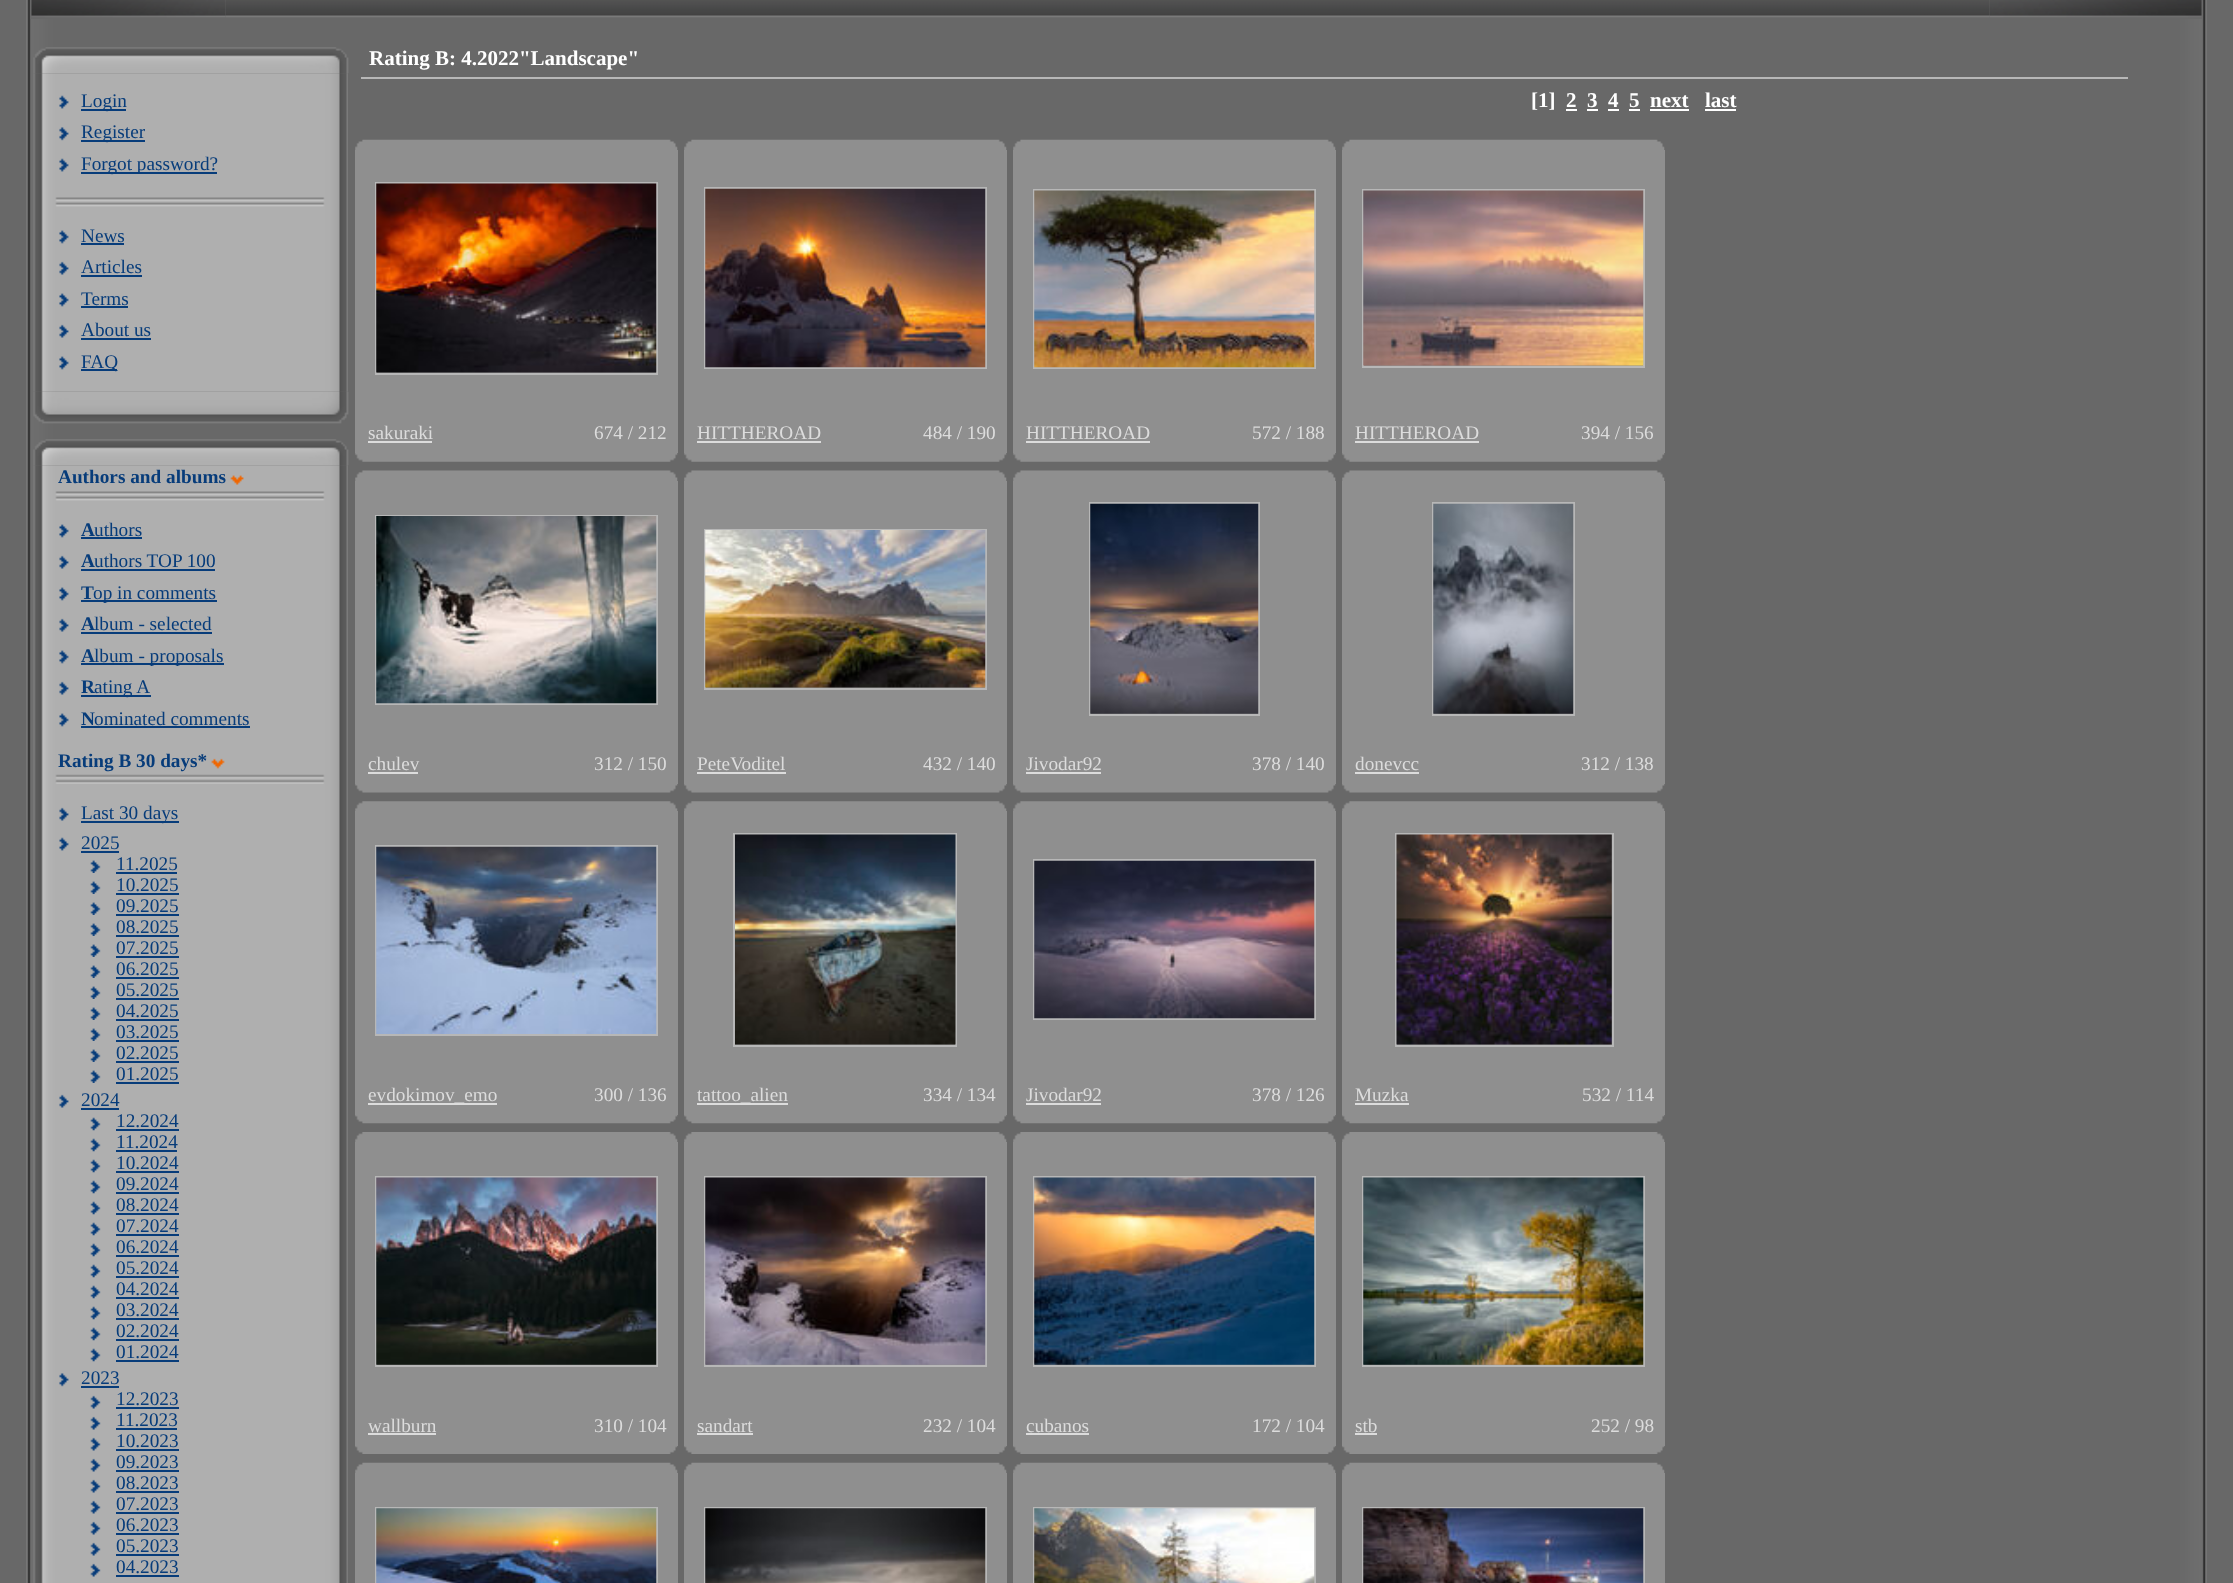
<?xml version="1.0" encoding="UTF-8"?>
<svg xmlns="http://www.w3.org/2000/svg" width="2233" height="1583">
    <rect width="100%" height="100%" fill="#686868"/>
    <image x="26" y="0" width="2181" height="1583" href="img_01.png"/>
    <rect x="30" y="0" width="2172" height="19" fill="#686868"/>
    <image x="31" y="0" width="195" height="18" href="img_02.png"/>
    <image x="226" y="0" width="1764" height="18" href="img_03.png"/>
    <image x="1990" y="0" width="212" height="18" href="img_04.png"/>
    <image x="33" y="47" width="316" height="27" href="img_05.png"/>
    <image x="33" y="73" width="315" height="319" href="img_06.png"/>
    <image x="59" y="95" width="10" height="14" href="img_07.png"/>
    <rect x="81" y="109" width="45" height="2" fill="#073C7A"/>
    <text x="81" y="107" font-family="Liberation Serif" font-size="19.25" fill="#073C7A">Login</text>
    <image x="59" y="127" width="10" height="14" href="img_08.png"/>
    <rect x="81" y="140" width="64" height="2" fill="#073C7A"/>
    <text x="81" y="138" font-family="Liberation Serif" font-size="19.25" fill="#073C7A">Register</text>
    <image x="59" y="158" width="10" height="14" href="img_07.png"/>
    <rect x="81" y="172" width="136" height="2" fill="#073C7A"/>
    <text x="81" y="170" font-family="Liberation Serif" font-size="19.25" fill="#073C7A">Forgot password?</text>
    <image x="55" y="197" width="270" height="10" href="img_09.png"/>
    <image x="59" y="230" width="10" height="14" href="img_10.png"/>
    <text x="81" y="242" font-family="Liberation Serif" font-size="19.25" fill="#073C7A">News</text>
    <rect x="81" y="243" width="43" height="2" fill="#073C7A"/>
    <image x="59" y="261" width="10" height="14" href="img_11.png"/>
    <text x="81" y="273" font-family="Liberation Serif" font-size="19.25" fill="#073C7A">Articles</text>
    <rect x="81" y="275" width="61" height="2" fill="#073C7A"/>
    <image x="59" y="293" width="10" height="14" href="img_10.png"/>
    <text x="81" y="305" font-family="Liberation Serif" font-size="19.25" fill="#073C7A">Terms</text>
    <rect x="81" y="306" width="47" height="2" fill="#073C7A"/>
    <image x="59" y="324" width="10" height="14" href="img_11.png"/>
    <text x="81" y="336" font-family="Liberation Serif" font-size="19.25" fill="#073C7A">About us</text>
    <rect x="81" y="338" width="70" height="2" fill="#073C7A"/>
    <image x="59" y="356" width="10" height="14" href="img_10.png"/>
    <rect x="81" y="369" width="36" height="2" fill="#073C7A"/>
    <text x="81" y="368" font-family="Liberation Serif" font-size="19.25" fill="#073C7A">FAQ</text>
    <image x="33" y="391" width="316" height="33" href="img_12.png"/>
    <image x="33" y="439" width="316" height="27" href="img_05.png"/>
    <image x="33" y="465" width="315" height="1118" href="img_13.png"/>
    <text x="58" y="483" font-family="Liberation Serif" font-size="19.25" font-weight="700" fill="#073C7A">Authors and albums</text>
    <image x="230" y="475" width="14" height="10" href="img_14.png"/>
    <image x="55" y="491" width="270" height="10" href="img_09.png"/>
    <image x="59" y="524" width="10" height="14" href="img_10.png"/>
    <text x="81" y="536" font-family="Liberation Serif" font-size="19.25" font-weight="700" fill="#073C7A">A</text>
    <rect x="81" y="537" width="61" height="2" fill="#073C7A"/>
    <text x="94" y="536" font-family="Liberation Serif" font-size="19.25" fill="#073C7A">uthors</text>
    <image x="59" y="555" width="10" height="14" href="img_11.png"/>
    <text x="81" y="567" font-family="Liberation Serif" font-size="19.25" font-weight="700" fill="#073C7A">A</text>
    <rect x="81" y="569" width="134" height="2" fill="#073C7A"/>
    <text x="94" y="567" font-family="Liberation Serif" font-size="19.25" fill="#073C7A">uthors TOP 100</text>
    <image x="59" y="587" width="10" height="14" href="img_10.png"/>
    <text x="81" y="599" font-family="Liberation Serif" font-size="19.25" font-weight="700" fill="#073C7A">T</text>
    <rect x="81" y="600" width="136" height="2" fill="#073C7A"/>
    <text x="93" y="599" font-family="Liberation Serif" font-size="19.25" fill="#073C7A">op in comments</text>
    <image x="59" y="618" width="10" height="14" href="img_11.png"/>
    <text x="81" y="630" font-family="Liberation Serif" font-size="19.25" font-weight="700" fill="#073C7A">A</text>
    <rect x="81" y="632" width="131" height="2" fill="#073C7A"/>
    <text x="94" y="630" font-family="Liberation Serif" font-size="19.25" fill="#073C7A">lbum - selected</text>
    <image x="59" y="650" width="10" height="14" href="img_10.png"/>
    <text x="81" y="662" font-family="Liberation Serif" font-size="19.25" font-weight="700" fill="#073C7A">A</text>
    <rect x="81" y="663" width="143" height="2" fill="#073C7A"/>
    <text x="94" y="662" font-family="Liberation Serif" font-size="19.25" fill="#073C7A">lbum - proposals</text>
    <image x="59" y="681" width="10" height="14" href="img_11.png"/>
    <text x="81" y="693" font-family="Liberation Serif" font-size="19.25" font-weight="700" fill="#073C7A">R</text>
    <rect x="81" y="695" width="70" height="2" fill="#073C7A"/>
    <text x="94" y="693" font-family="Liberation Serif" font-size="19.25" fill="#073C7A">ating A</text>
    <image x="59" y="713" width="10" height="14" href="img_10.png"/>
    <text x="81" y="725" font-family="Liberation Serif" font-size="19.25" font-weight="700" fill="#073C7A">N</text>
    <rect x="81" y="726" width="169" height="2" fill="#073C7A"/>
    <text x="94" y="725" font-family="Liberation Serif" font-size="19.25" fill="#073C7A">ominated comments</text>
    <text x="58" y="767" font-family="Liberation Serif" font-size="19.25" font-weight="700" fill="#073C7A">Rating B 30 days*</text>
    <image x="211" y="758" width="14" height="11" href="img_15.png"/>
    <image x="55" y="774" width="270" height="10" href="img_16.png"/>
    <image x="59" y="807" width="10" height="14" href="img_11.png"/>
    <rect x="81" y="821" width="98" height="2" fill="#073C7A"/>
    <text x="81" y="819" font-family="Liberation Serif" font-size="19.25" fill="#073C7A">Last 30 days</text>
    <image x="59" y="837" width="10" height="14" href="img_07.png"/>
    <text x="81" y="849" font-family="Liberation Serif" font-size="19.25" fill="#073C7A">2025</text>
    <rect x="81" y="851" width="38" height="2" fill="#073C7A"/>
    <image x="90" y="860" width="11" height="13" href="img_17.png"/>
    <text x="116" y="870" font-family="Liberation Serif" font-size="19.25" fill="#073C7A">11.2025</text>
    <rect x="116" y="872" width="61" height="2" fill="#073C7A"/>
    <image x="90" y="881" width="11" height="13" href="img_17.png"/>
    <text x="116" y="891" font-family="Liberation Serif" font-size="19.25" fill="#073C7A">10.2025</text>
    <rect x="116" y="893" width="63" height="2" fill="#073C7A"/>
    <image x="90" y="902" width="11" height="13" href="img_17.png"/>
    <text x="116" y="912" font-family="Liberation Serif" font-size="19.25" fill="#073C7A">09.2025</text>
    <rect x="116" y="914" width="63" height="2" fill="#073C7A"/>
    <image x="90" y="923" width="11" height="13" href="img_17.png"/>
    <text x="116" y="933" font-family="Liberation Serif" font-size="19.25" fill="#073C7A">08.2025</text>
    <rect x="116" y="935" width="63" height="2" fill="#073C7A"/>
    <image x="90" y="944" width="11" height="13" href="img_17.png"/>
    <text x="116" y="954" font-family="Liberation Serif" font-size="19.25" fill="#073C7A">07.2025</text>
    <rect x="116" y="956" width="63" height="2" fill="#073C7A"/>
    <image x="90" y="965" width="11" height="13" href="img_17.png"/>
    <text x="116" y="975" font-family="Liberation Serif" font-size="19.25" fill="#073C7A">06.2025</text>
    <rect x="116" y="977" width="63" height="2" fill="#073C7A"/>
    <image x="90" y="986" width="11" height="13" href="img_17.png"/>
    <text x="116" y="996" font-family="Liberation Serif" font-size="19.25" fill="#073C7A">05.2025</text>
    <rect x="116" y="998" width="63" height="2" fill="#073C7A"/>
    <image x="90" y="1007" width="11" height="13" href="img_17.png"/>
    <text x="116" y="1017" font-family="Liberation Serif" font-size="19.25" fill="#073C7A">04.2025</text>
    <rect x="116" y="1019" width="63" height="2" fill="#073C7A"/>
    <image x="90" y="1028" width="11" height="13" href="img_17.png"/>
    <text x="116" y="1038" font-family="Liberation Serif" font-size="19.25" fill="#073C7A">03.2025</text>
    <rect x="116" y="1040" width="63" height="2" fill="#073C7A"/>
    <image x="90" y="1049" width="11" height="13" href="img_17.png"/>
    <text x="116" y="1059" font-family="Liberation Serif" font-size="19.25" fill="#073C7A">02.2025</text>
    <rect x="116" y="1061" width="63" height="2" fill="#073C7A"/>
    <image x="90" y="1070" width="11" height="13" href="img_17.png"/>
    <text x="116" y="1080" font-family="Liberation Serif" font-size="19.25" fill="#073C7A">01.2025</text>
    <rect x="116" y="1082" width="63" height="2" fill="#073C7A"/>
    <image x="59" y="1094" width="10" height="14" href="img_11.png"/>
    <text x="81" y="1106" font-family="Liberation Serif" font-size="19.25" fill="#073C7A">2024</text>
    <rect x="81" y="1108" width="38" height="2" fill="#073C7A"/>
    <image x="90" y="1117" width="11" height="14" href="img_18.png"/>
    <text x="116" y="1127" font-family="Liberation Serif" font-size="19.25" fill="#073C7A">12.2024</text>
    <rect x="116" y="1129" width="63" height="2" fill="#073C7A"/>
    <image x="90" y="1138" width="11" height="14" href="img_18.png"/>
    <text x="116" y="1148" font-family="Liberation Serif" font-size="19.25" fill="#073C7A">11.2024</text>
    <rect x="116" y="1150" width="61" height="2" fill="#073C7A"/>
    <image x="90" y="1159" width="11" height="14" href="img_18.png"/>
    <text x="116" y="1169" font-family="Liberation Serif" font-size="19.25" fill="#073C7A">10.2024</text>
    <rect x="116" y="1171" width="63" height="2" fill="#073C7A"/>
    <image x="90" y="1180" width="11" height="14" href="img_18.png"/>
    <text x="116" y="1190" font-family="Liberation Serif" font-size="19.25" fill="#073C7A">09.2024</text>
    <rect x="116" y="1192" width="63" height="2" fill="#073C7A"/>
    <image x="90" y="1201" width="11" height="14" href="img_18.png"/>
    <text x="116" y="1211" font-family="Liberation Serif" font-size="19.25" fill="#073C7A">08.2024</text>
    <rect x="116" y="1213" width="63" height="2" fill="#073C7A"/>
    <image x="90" y="1222" width="11" height="14" href="img_18.png"/>
    <text x="116" y="1232" font-family="Liberation Serif" font-size="19.25" fill="#073C7A">07.2024</text>
    <rect x="116" y="1234" width="63" height="2" fill="#073C7A"/>
    <image x="90" y="1243" width="11" height="14" href="img_18.png"/>
    <text x="116" y="1253" font-family="Liberation Serif" font-size="19.25" fill="#073C7A">06.2024</text>
    <rect x="116" y="1255" width="63" height="2" fill="#073C7A"/>
    <image x="90" y="1264" width="11" height="14" href="img_18.png"/>
    <text x="116" y="1274" font-family="Liberation Serif" font-size="19.25" fill="#073C7A">05.2024</text>
    <rect x="116" y="1276" width="63" height="2" fill="#073C7A"/>
    <image x="90" y="1285" width="11" height="14" href="img_18.png"/>
    <text x="116" y="1295" font-family="Liberation Serif" font-size="19.25" fill="#073C7A">04.2024</text>
    <rect x="116" y="1297" width="63" height="2" fill="#073C7A"/>
    <image x="90" y="1306" width="11" height="14" href="img_18.png"/>
    <text x="116" y="1316" font-family="Liberation Serif" font-size="19.25" fill="#073C7A">03.2024</text>
    <rect x="116" y="1318" width="63" height="2" fill="#073C7A"/>
    <image x="90" y="1327" width="11" height="14" href="img_18.png"/>
    <text x="116" y="1337" font-family="Liberation Serif" font-size="19.25" fill="#073C7A">02.2024</text>
    <rect x="116" y="1339" width="63" height="2" fill="#073C7A"/>
    <image x="90" y="1348" width="11" height="14" href="img_18.png"/>
    <text x="116" y="1358" font-family="Liberation Serif" font-size="19.25" fill="#073C7A">01.2024</text>
    <rect x="116" y="1360" width="63" height="2" fill="#073C7A"/>
    <image x="59" y="1373" width="10" height="14" href="img_08.png"/>
    <text x="81" y="1384" font-family="Liberation Serif" font-size="19.25" fill="#073C7A">2023</text>
    <rect x="81" y="1386" width="38" height="2" fill="#073C7A"/>
    <image x="90" y="1395" width="11" height="14" href="img_19.png"/>
    <text x="116" y="1405" font-family="Liberation Serif" font-size="19.25" fill="#073C7A">12.2023</text>
    <rect x="116" y="1407" width="63" height="2" fill="#073C7A"/>
    <image x="90" y="1416" width="11" height="14" href="img_19.png"/>
    <text x="116" y="1426" font-family="Liberation Serif" font-size="19.25" fill="#073C7A">11.2023</text>
    <rect x="116" y="1428" width="61" height="2" fill="#073C7A"/>
    <image x="90" y="1437" width="11" height="14" href="img_19.png"/>
    <text x="116" y="1447" font-family="Liberation Serif" font-size="19.25" fill="#073C7A">10.2023</text>
    <rect x="116" y="1449" width="63" height="2" fill="#073C7A"/>
    <image x="90" y="1458" width="11" height="14" href="img_19.png"/>
    <text x="116" y="1468" font-family="Liberation Serif" font-size="19.25" fill="#073C7A">09.2023</text>
    <rect x="116" y="1470" width="63" height="2" fill="#073C7A"/>
    <image x="90" y="1479" width="11" height="14" href="img_19.png"/>
    <text x="116" y="1489" font-family="Liberation Serif" font-size="19.25" fill="#073C7A">08.2023</text>
    <rect x="116" y="1491" width="63" height="2" fill="#073C7A"/>
    <image x="90" y="1500" width="11" height="14" href="img_19.png"/>
    <text x="116" y="1510" font-family="Liberation Serif" font-size="19.25" fill="#073C7A">07.2023</text>
    <rect x="116" y="1512" width="63" height="2" fill="#073C7A"/>
    <image x="90" y="1521" width="11" height="14" href="img_19.png"/>
    <text x="116" y="1531" font-family="Liberation Serif" font-size="19.25" fill="#073C7A">06.2023</text>
    <rect x="116" y="1533" width="63" height="2" fill="#073C7A"/>
    <image x="90" y="1542" width="11" height="14" href="img_19.png"/>
    <text x="116" y="1552" font-family="Liberation Serif" font-size="19.25" fill="#073C7A">05.2023</text>
    <rect x="116" y="1554" width="63" height="2" fill="#073C7A"/>
    <image x="90" y="1563" width="11" height="14" href="img_19.png"/>
    <text x="116" y="1573" font-family="Liberation Serif" font-size="19.25" fill="#073C7A">04.2023</text>
    <rect x="116" y="1575" width="63" height="2" fill="#073C7A"/>
    <rect x="361" y="77" width="1767" height="2" fill="#B7B7B7"/>
    <text x="369" y="65" font-family="Liberation Serif" font-size="21" font-weight="700" fill="#FFFFFF">Rating B: 4.2022"Landscape"</text>
    <text x="1531" y="107" font-family="Liberation Serif" font-size="21" font-weight="700" fill="#FFFFFF">[1]</text>
    <text x="1566" y="107" font-family="Liberation Serif" font-size="21" font-weight="700" fill="#FFFFFF">2</text>
    <rect x="1566" y="109" width="11" height="2" fill="#FFFFFF"/>
    <text x="1587" y="107" font-family="Liberation Serif" font-size="21" font-weight="700" fill="#FFFFFF">3</text>
    <rect x="1587" y="109" width="11" height="2" fill="#FFFFFF"/>
    <text x="1608" y="107" font-family="Liberation Serif" font-size="21" font-weight="700" fill="#FFFFFF">4</text>
    <rect x="1608" y="109" width="11" height="2" fill="#FFFFFF"/>
    <text x="1629" y="107" font-family="Liberation Serif" font-size="21" font-weight="700" fill="#FFFFFF">5</text>
    <rect x="1629" y="109" width="11" height="2" fill="#FFFFFF"/>
    <text x="1650" y="107" font-family="Liberation Serif" font-size="21" font-weight="700" fill="#FFFFFF">next</text>
    <rect x="1650" y="109" width="39" height="2" fill="#FFFFFF"/>
    <text x="1705" y="107" font-family="Liberation Serif" font-size="21" font-weight="700" fill="#FFFFFF">last</text>
    <rect x="1705" y="109" width="31" height="2" fill="#FFFFFF"/>
    <image x="355" y="139" width="323" height="11" href="img_20.png"/>
    <rect x="355" y="150" width="323" height="303" fill="#8F8F8F"/>
    <rect x="376" y="183" width="281" height="191" fill="none" stroke="#B7B7B7" stroke-width="2"/>
    <image x="376" y="183" width="281" height="190" href="img_21.png"/>
    <text x="368" y="439" font-family="Liberation Serif" font-size="19.25" fill="#DCDCDC">sakuraki</text>
    <rect x="368" y="441" width="64" height="2" fill="#DCDCDC"/>
    <text x="594" y="439" font-family="Liberation Serif" font-size="19.25" fill="#DCDCDC">674 / 212</text>
    <image x="355" y="453" width="323" height="9" href="img_22.png"/>
    <image x="684" y="139" width="323" height="11" href="img_20.png"/>
    <rect x="684" y="150" width="323" height="303" fill="#8F8F8F"/>
    <rect x="705" y="188" width="281" height="180" fill="none" stroke="#B7B7B7" stroke-width="2"/>
    <image x="705" y="188" width="281" height="180" href="img_23.png"/>
    <text x="697" y="439" font-family="Liberation Serif" font-size="19.25" fill="#DCDCDC">HITTHEROAD</text>
    <rect x="697" y="441" width="124" height="2" fill="#DCDCDC"/>
    <text x="923" y="439" font-family="Liberation Serif" font-size="19.25" fill="#DCDCDC">484 / 190</text>
    <image x="684" y="453" width="323" height="9" href="img_22.png"/>
    <image x="1013" y="139" width="323" height="11" href="img_20.png"/>
    <rect x="1013" y="150" width="323" height="303" fill="#8F8F8F"/>
    <rect x="1034" y="190" width="281" height="178" fill="none" stroke="#B7B7B7" stroke-width="2"/>
    <image x="1034" y="190" width="281" height="178" href="img_24.png"/>
    <text x="1026" y="439" font-family="Liberation Serif" font-size="19.25" fill="#DCDCDC">HITTHEROAD</text>
    <rect x="1026" y="441" width="124" height="2" fill="#DCDCDC"/>
    <text x="1252" y="439" font-family="Liberation Serif" font-size="19.25" fill="#DCDCDC">572 / 188</text>
    <image x="1013" y="453" width="323" height="9" href="img_22.png"/>
    <image x="1342" y="139" width="323" height="11" href="img_20.png"/>
    <rect x="1342" y="150" width="323" height="303" fill="#8F8F8F"/>
    <rect x="1363" y="190" width="281" height="177" fill="none" stroke="#B7B7B7" stroke-width="2"/>
    <image x="1363" y="190" width="281" height="176" href="img_25.png"/>
    <text x="1355" y="439" font-family="Liberation Serif" font-size="19.25" fill="#DCDCDC">HITTHEROAD</text>
    <rect x="1355" y="441" width="124" height="2" fill="#DCDCDC"/>
    <text x="1581" y="439" font-family="Liberation Serif" font-size="19.25" fill="#DCDCDC">394 / 156</text>
    <image x="1342" y="453" width="323" height="9" href="img_22.png"/>
    <image x="355" y="470" width="323" height="11" href="img_26.png"/>
    <rect x="355" y="481" width="323" height="303" fill="#8F8F8F"/>
    <rect x="376" y="516" width="281" height="188" fill="none" stroke="#B7B7B7" stroke-width="2"/>
    <image x="376" y="516" width="281" height="188" href="img_27.png"/>
    <text x="368" y="770" font-family="Liberation Serif" font-size="19.25" fill="#DCDCDC">chulev</text>
    <rect x="368" y="772" width="50" height="2" fill="#DCDCDC"/>
    <text x="594" y="770" font-family="Liberation Serif" font-size="19.25" fill="#DCDCDC">312 / 150</text>
    <image x="355" y="784" width="323" height="9" href="img_28.png"/>
    <image x="684" y="470" width="323" height="11" href="img_26.png"/>
    <rect x="684" y="481" width="323" height="303" fill="#8F8F8F"/>
    <rect x="705" y="530" width="281" height="159" fill="none" stroke="#B7B7B7" stroke-width="2"/>
    <image x="705" y="530" width="281" height="158" href="img_29.png"/>
    <text x="697" y="770" font-family="Liberation Serif" font-size="19.25" fill="#DCDCDC">PeteVoditel</text>
    <rect x="697" y="772" width="89" height="2" fill="#DCDCDC"/>
    <text x="923" y="770" font-family="Liberation Serif" font-size="19.25" fill="#DCDCDC">432 / 140</text>
    <image x="684" y="784" width="323" height="9" href="img_28.png"/>
    <image x="1013" y="470" width="323" height="11" href="img_26.png"/>
    <rect x="1013" y="481" width="323" height="303" fill="#8F8F8F"/>
    <rect x="1090" y="503" width="169" height="212" fill="none" stroke="#B7B7B7" stroke-width="2"/>
    <image x="1090" y="503" width="169" height="211" href="img_30.png"/>
    <text x="1026" y="770" font-family="Liberation Serif" font-size="19.25" fill="#DCDCDC">Jivodar92</text>
    <rect x="1026" y="772" width="75" height="2" fill="#DCDCDC"/>
    <text x="1252" y="770" font-family="Liberation Serif" font-size="19.25" fill="#DCDCDC">378 / 140</text>
    <image x="1013" y="784" width="323" height="9" href="img_28.png"/>
    <image x="1342" y="470" width="323" height="11" href="img_26.png"/>
    <rect x="1342" y="481" width="323" height="303" fill="#8F8F8F"/>
    <rect x="1433" y="503" width="141" height="212" fill="none" stroke="#B7B7B7" stroke-width="2"/>
    <image x="1433" y="503" width="141" height="211" href="img_31.png"/>
    <text x="1355" y="770" font-family="Liberation Serif" font-size="19.25" fill="#DCDCDC">donevcc</text>
    <rect x="1355" y="772" width="64" height="2" fill="#DCDCDC"/>
    <text x="1581" y="770" font-family="Liberation Serif" font-size="19.25" fill="#DCDCDC">312 / 138</text>
    <image x="1342" y="784" width="323" height="9" href="img_28.png"/>
    <image x="355" y="801" width="323" height="10" href="img_32.png"/>
    <rect x="355" y="811" width="323" height="304" fill="#8F8F8F"/>
    <rect x="376" y="846" width="281" height="189" fill="none" stroke="#B7B7B7" stroke-width="2"/>
    <image x="376" y="846" width="281" height="188" href="img_33.png"/>
    <rect x="368" y="1103" width="129" height="2" fill="#DCDCDC"/>
    <text x="368" y="1101" font-family="Liberation Serif" font-size="19.25" fill="#DCDCDC">evdokimov_emo</text>
    <text x="594" y="1101" font-family="Liberation Serif" font-size="19.25" fill="#DCDCDC">300 / 136</text>
    <image x="355" y="1115" width="323" height="9" href="img_34.png"/>
    <image x="684" y="801" width="323" height="10" href="img_32.png"/>
    <rect x="684" y="811" width="323" height="304" fill="#8F8F8F"/>
    <rect x="734" y="834" width="222" height="212" fill="none" stroke="#B7B7B7" stroke-width="2"/>
    <image x="735" y="834" width="221" height="211" href="img_35.png"/>
    <rect x="697" y="1103" width="91" height="2" fill="#DCDCDC"/>
    <text x="697" y="1101" font-family="Liberation Serif" font-size="19.25" fill="#DCDCDC">tattoo_alien</text>
    <text x="923" y="1101" font-family="Liberation Serif" font-size="19.25" fill="#DCDCDC">334 / 134</text>
    <image x="684" y="1115" width="323" height="9" href="img_34.png"/>
    <image x="1013" y="801" width="323" height="10" href="img_32.png"/>
    <rect x="1013" y="811" width="323" height="304" fill="#8F8F8F"/>
    <rect x="1034" y="860" width="281" height="159" fill="none" stroke="#B7B7B7" stroke-width="2"/>
    <image x="1034" y="860" width="281" height="159" href="img_36.png"/>
    <text x="1026" y="1101" font-family="Liberation Serif" font-size="19.25" fill="#DCDCDC">Jivodar92</text>
    <rect x="1026" y="1103" width="75" height="2" fill="#DCDCDC"/>
    <text x="1252" y="1101" font-family="Liberation Serif" font-size="19.25" fill="#DCDCDC">378 / 126</text>
    <image x="1013" y="1115" width="323" height="9" href="img_34.png"/>
    <image x="1342" y="801" width="323" height="10" href="img_32.png"/>
    <rect x="1342" y="811" width="323" height="304" fill="#8F8F8F"/>
    <rect x="1396" y="834" width="217" height="212" fill="none" stroke="#B7B7B7" stroke-width="2"/>
    <image x="1396" y="834" width="216" height="211" href="img_37.png"/>
    <text x="1355" y="1101" font-family="Liberation Serif" font-size="19.25" fill="#DCDCDC">Muzka</text>
    <rect x="1355" y="1103" width="54" height="2" fill="#DCDCDC"/>
    <text x="1582" y="1101" font-family="Liberation Serif" font-size="19.25" fill="#DCDCDC">532 / 114</text>
    <image x="1342" y="1115" width="323" height="9" href="img_34.png"/>
    <image x="355" y="1132" width="323" height="10" href="img_38.png"/>
    <rect x="355" y="1142" width="323" height="304" fill="#8F8F8F"/>
    <rect x="376" y="1177" width="281" height="189" fill="none" stroke="#B7B7B7" stroke-width="2"/>
    <image x="376" y="1177" width="281" height="188" href="img_39.png"/>
    <text x="368" y="1432" font-family="Liberation Serif" font-size="19.25" fill="#DCDCDC">wallburn</text>
    <rect x="368" y="1433" width="68" height="2" fill="#DCDCDC"/>
    <text x="594" y="1432" font-family="Liberation Serif" font-size="19.25" fill="#DCDCDC">310 / 104</text>
    <image x="355" y="1446" width="323" height="8" href="img_40.png"/>
    <image x="684" y="1132" width="323" height="10" href="img_38.png"/>
    <rect x="684" y="1142" width="323" height="304" fill="#8F8F8F"/>
    <rect x="705" y="1177" width="281" height="189" fill="none" stroke="#B7B7B7" stroke-width="2"/>
    <image x="705" y="1177" width="281" height="188" href="img_41.png"/>
    <text x="697" y="1432" font-family="Liberation Serif" font-size="19.25" fill="#DCDCDC">sandart</text>
    <rect x="697" y="1433" width="56" height="2" fill="#DCDCDC"/>
    <text x="923" y="1432" font-family="Liberation Serif" font-size="19.25" fill="#DCDCDC">232 / 104</text>
    <image x="684" y="1446" width="323" height="8" href="img_40.png"/>
    <image x="1013" y="1132" width="323" height="10" href="img_38.png"/>
    <rect x="1013" y="1142" width="323" height="304" fill="#8F8F8F"/>
    <rect x="1034" y="1177" width="281" height="189" fill="none" stroke="#B7B7B7" stroke-width="2"/>
    <image x="1034" y="1177" width="281" height="188" href="img_42.png"/>
    <text x="1026" y="1432" font-family="Liberation Serif" font-size="19.25" fill="#DCDCDC">cubanos</text>
    <rect x="1026" y="1433" width="63" height="2" fill="#DCDCDC"/>
    <text x="1252" y="1432" font-family="Liberation Serif" font-size="19.25" fill="#DCDCDC">172 / 104</text>
    <image x="1013" y="1446" width="323" height="8" href="img_40.png"/>
    <image x="1342" y="1132" width="323" height="10" href="img_38.png"/>
    <rect x="1342" y="1142" width="323" height="304" fill="#8F8F8F"/>
    <rect x="1363" y="1177" width="281" height="189" fill="none" stroke="#B7B7B7" stroke-width="2"/>
    <image x="1363" y="1177" width="281" height="188" href="img_43.png"/>
    <text x="1355" y="1432" font-family="Liberation Serif" font-size="19.25" fill="#DCDCDC">stb</text>
    <rect x="1355" y="1433" width="22" height="2" fill="#DCDCDC"/>
    <text x="1591" y="1432" font-family="Liberation Serif" font-size="19.25" fill="#DCDCDC">252 / 98</text>
    <image x="1342" y="1446" width="323" height="8" href="img_40.png"/>
    <image x="355" y="1462" width="323" height="11" href="img_20.png"/>
    <rect x="355" y="1473" width="323" height="110" fill="#8F8F8F"/>
    <rect x="376" y="1508" width="281" height="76" fill="none" stroke="#B7B7B7" stroke-width="2"/>
    <image x="376" y="1508" width="281" height="75" href="img_44.png"/>
    <image x="684" y="1462" width="323" height="11" href="img_20.png"/>
    <rect x="684" y="1473" width="323" height="110" fill="#8F8F8F"/>
    <rect x="705" y="1508" width="281" height="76" fill="none" stroke="#B7B7B7" stroke-width="2"/>
    <image x="705" y="1508" width="281" height="75" href="img_45.png"/>
    <image x="1013" y="1462" width="323" height="11" href="img_20.png"/>
    <rect x="1013" y="1473" width="323" height="110" fill="#8F8F8F"/>
    <rect x="1034" y="1508" width="281" height="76" fill="none" stroke="#B7B7B7" stroke-width="2"/>
    <image x="1034" y="1508" width="281" height="75" href="img_46.png"/>
    <image x="1342" y="1462" width="323" height="11" href="img_20.png"/>
    <rect x="1342" y="1473" width="323" height="110" fill="#8F8F8F"/>
    <rect x="1363" y="1508" width="281" height="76" fill="none" stroke="#B7B7B7" stroke-width="2"/>
    <image x="1363" y="1508" width="281" height="75" href="img_47.png"/>
</svg>
